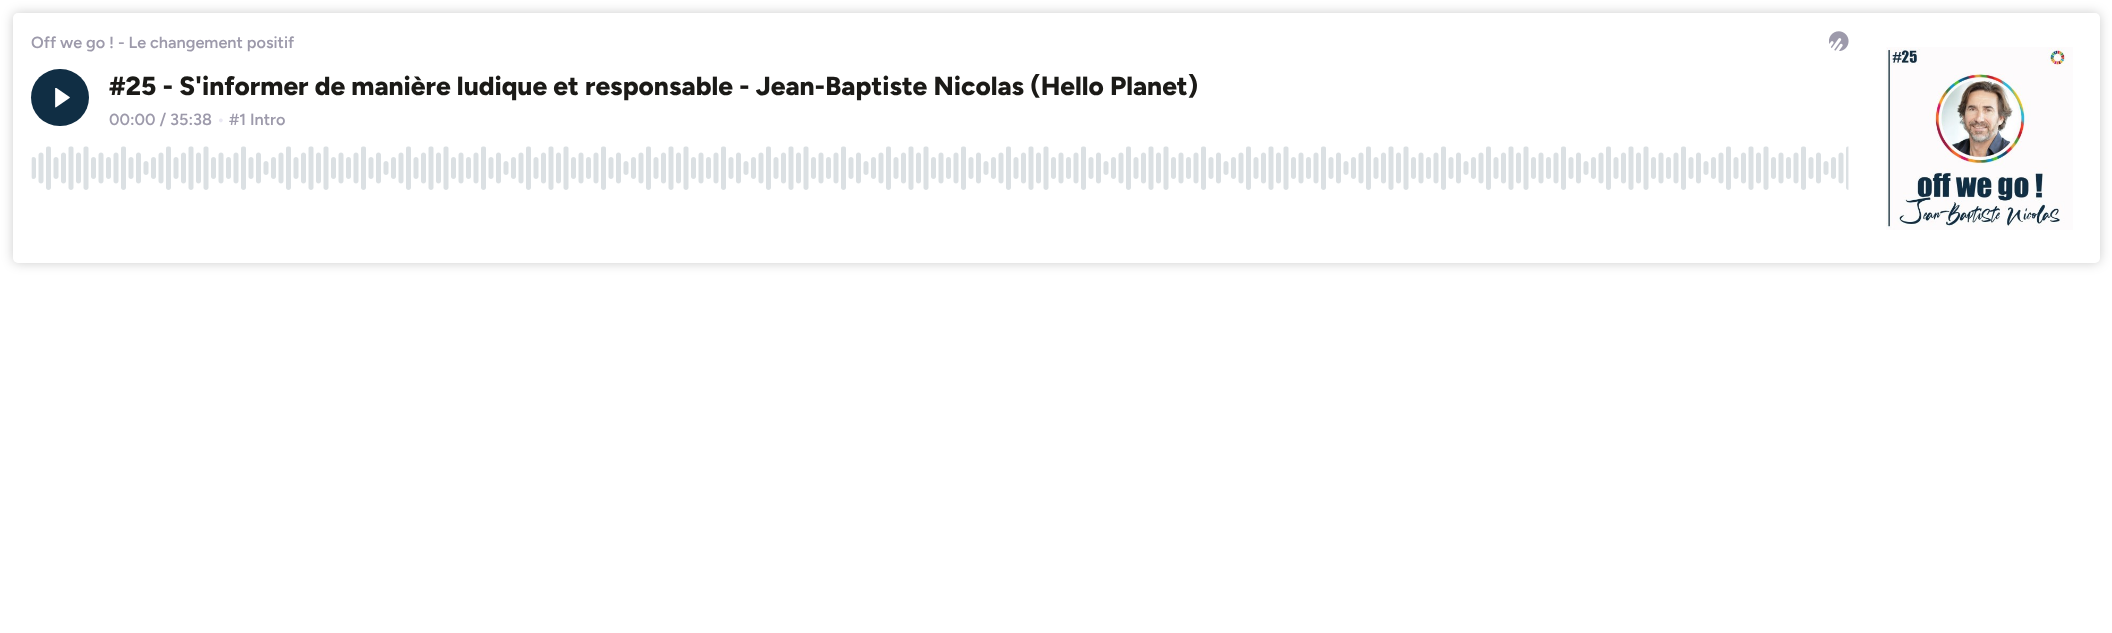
<?xml version="1.0" encoding="UTF-8"?>
<svg xmlns="http://www.w3.org/2000/svg" width="2112" height="633">
    <defs>
        <filter id="blur1" x="-50%" y="-200%" width="200%" height="500%"><feGaussianBlur stdDeviation="6"/></filter>
    </defs>
    <rect width="100%" height="100%" fill="#FFFFFF"/>
    <rect x="13" y="13" width="2087" height="250" rx="5" fill="#000000" fill-opacity="0.2" filter="url(#blur1)"/>
    <rect x="13" y="13" width="2087" height="250" rx="5" fill="#FFFFFF"/>
    <text x="31" y="48" font-family="Figtree" font-size="16.25" font-weight="600" fill="#9D9AAB">Off we go ! - Le changement positif</text>
    <image x="1829" y="31" width="20" height="20" href="img_01.png"/>
    <rect x="31" y="69" width="58" height="57" rx="28.5" fill="#102E44"/>
    <image x="55" y="88" width="15" height="20" href="img_02.png"/>
    <text x="109" y="95" font-family="Figtree" font-size="26.25" font-weight="800" fill="#1B1A17">#25 - S'informer de manière ludique et responsable - Jean-Baptiste Nicolas (Hello Planet)</text>
    <text x="109" y="125" font-family="Figtree" font-size="16.25" font-weight="600" fill="#9D9AAB">00:00 / 35:38</text>
    <text x="217" y="125" font-family="Figtree" font-size="16.25" font-weight="600" fill="#EAE8F3">•</text>
    <text x="229" y="125" font-family="Figtree" font-size="16.25" font-weight="600" fill="#9D9AAB">#1 Intro</text>
    <image x="31" y="146" width="1818" height="44" href="img_03.png"/>
    <image x="1886" y="47" width="187" height="183" href="img_04.png"/>
</svg>
